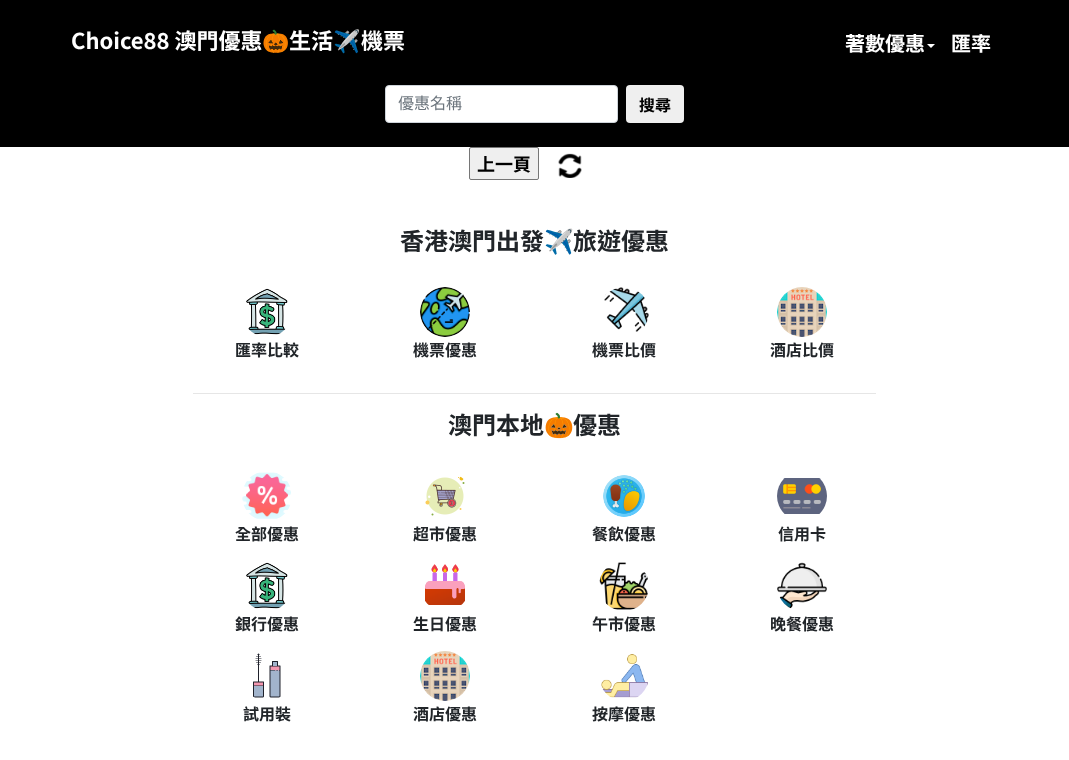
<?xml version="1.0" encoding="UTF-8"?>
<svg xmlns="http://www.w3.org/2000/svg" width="1069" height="760">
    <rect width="100%" height="100%" fill="#FFFFFF"/>
    <rect x="0" y="0" width="1069" height="147" fill="#000000"/>
    <text x="71" y="49" font-family="Noto Sans TC" font-size="22" font-weight="100" fill="#FFFFFF">Choice88 澳門優惠</text>
    <text x="262" y="49" font-family="Noto Color Emoji" font-size="22" font-weight="700" fill="#FFFFFF">🎃</text>
    <text x="289" y="49" font-family="Noto Sans TC" font-size="22" font-weight="100" fill="#FFFFFF">生活</text>
    <text x="333" y="49" font-family="Noto Color Emoji" font-size="22" font-weight="700" fill="#FFFFFF">✈️</text>
    <text x="361" y="49" font-family="Noto Sans TC" font-size="22" font-weight="100" fill="#FFFFFF">機票</text>
    <text x="845" y="51" font-family="Noto Sans TC" font-size="20" font-weight="100" fill="#FFFFFF">著數優惠</text>
    <path d="M 927 44 H 935 L 931 48 Z" fill="#FFFFFF"/>
    <text x="951" y="51" font-family="Noto Sans TC" font-size="20" font-weight="100" fill="#FFFFFF">匯率</text>
    <rect x="385.5" y="85.5" width="232" height="37" rx="3.5" fill="#FFFFFF" stroke="#CED4DA"/>
    <text x="398" y="109" font-family="Noto Sans CJK TC" font-size="16" fill="#6C757D">優惠名稱</text>
    <rect x="626" y="85" width="58" height="38" rx="4" fill="#EFEFEF"/>
    <text x="639" y="111" font-family="Noto Sans TC" font-size="16" font-weight="100" fill="#000000">搜尋</text>
    <rect x="469.5" y="147.5" width="69" height="32" rx="1.5" fill="#EFEFEF" stroke="#767676"/>
    <text x="477" y="171" font-family="Noto Sans TC" font-size="18" font-weight="100" fill="#000000">上一頁</text>
    <image x="558" y="153" width="24" height="25" href="img_01.png"/>
    <text x="400" y="250" font-family="Noto Sans TC" font-size="24" font-weight="100" fill="#212529">香港澳門出發</text>
    <text x="544" y="250" font-family="Noto Color Emoji" font-size="24" fill="#212529">✈️</text>
    <text x="573" y="250" font-family="Noto Sans TC" font-size="24" font-weight="100" fill="#212529">旅遊優惠</text>
    <image x="246" y="288" width="42" height="47" href="img_02.png"/>
    <text x="235" y="356" font-family="Noto Sans TC" font-size="16" font-weight="100" fill="#212529">匯率比較</text>
    <image x="420" y="287" width="50" height="50" href="img_03.png"/>
    <text x="413" y="356" font-family="Noto Sans TC" font-size="16" font-weight="100" fill="#212529">機票優惠</text>
    <image x="604" y="287" width="45" height="45" href="img_04.png"/>
    <text x="592" y="356" font-family="Noto Sans TC" font-size="16" font-weight="100" fill="#212529">機票比價</text>
    <image x="777" y="287" width="50" height="50" href="img_05.png"/>
    <text x="770" y="356" font-family="Noto Sans TC" font-size="16" font-weight="100" fill="#212529">酒店比價</text>
    <rect x="193" y="393" width="683" height="1" fill="#E6E6E6"/>
    <text x="448" y="434" font-family="Noto Sans TC" font-size="24" font-weight="100" fill="#212529">澳門本地</text>
    <text x="544" y="434" font-family="Noto Color Emoji" font-size="24" fill="#212529">🎃</text>
    <text x="573" y="434" font-family="Noto Sans TC" font-size="24" font-weight="100" fill="#212529">優惠</text>
    <image x="242" y="472" width="49" height="47" href="img_06.png"/>
    <text x="235" y="540" font-family="Noto Sans TC" font-size="16" font-weight="100" fill="#212529">全部優惠</text>
    <image x="425" y="476" width="40" height="40" href="img_07.png"/>
    <text x="413" y="540" font-family="Noto Sans TC" font-size="16" font-weight="100" fill="#212529">超市優惠</text>
    <image x="603" y="475" width="42" height="42" href="img_08.png"/>
    <text x="592" y="540" font-family="Noto Sans TC" font-size="16" font-weight="100" fill="#212529">餐飲優惠</text>
    <image x="777" y="478" width="50" height="36" href="img_09.png"/>
    <text x="778" y="540" font-family="Noto Sans TC" font-size="16" font-weight="100" fill="#212529">信用卡</text>
    <image x="246" y="562" width="42" height="47" href="img_02.png"/>
    <text x="235" y="630" font-family="Noto Sans TC" font-size="16" font-weight="100" fill="#212529">銀行優惠</text>
    <image x="425" y="564" width="40" height="41" href="img_10.png"/>
    <text x="413" y="630" font-family="Noto Sans TC" font-size="16" font-weight="100" fill="#212529">生日優惠</text>
    <image x="599" y="562" width="49" height="48" href="img_11.png"/>
    <text x="592" y="630" font-family="Noto Sans TC" font-size="16" font-weight="100" fill="#212529">午市優惠</text>
    <image x="777" y="562" width="50" height="47" href="img_12.png"/>
    <text x="770" y="630" font-family="Noto Sans TC" font-size="16" font-weight="100" fill="#212529">晚餐優惠</text>
    <image x="253" y="653" width="28" height="45" href="img_13.png"/>
    <text x="243" y="720" font-family="Noto Sans TC" font-size="16" font-weight="100" fill="#212529">試用裝</text>
    <image x="420" y="651" width="50" height="50" href="img_14.png"/>
    <text x="413" y="720" font-family="Noto Sans TC" font-size="16" font-weight="100" fill="#212529">酒店優惠</text>
    <image x="601" y="654" width="47" height="44" href="img_15.png"/>
    <text x="592" y="720" font-family="Noto Sans TC" font-size="16" font-weight="100" fill="#212529">按摩優惠</text>
</svg>
